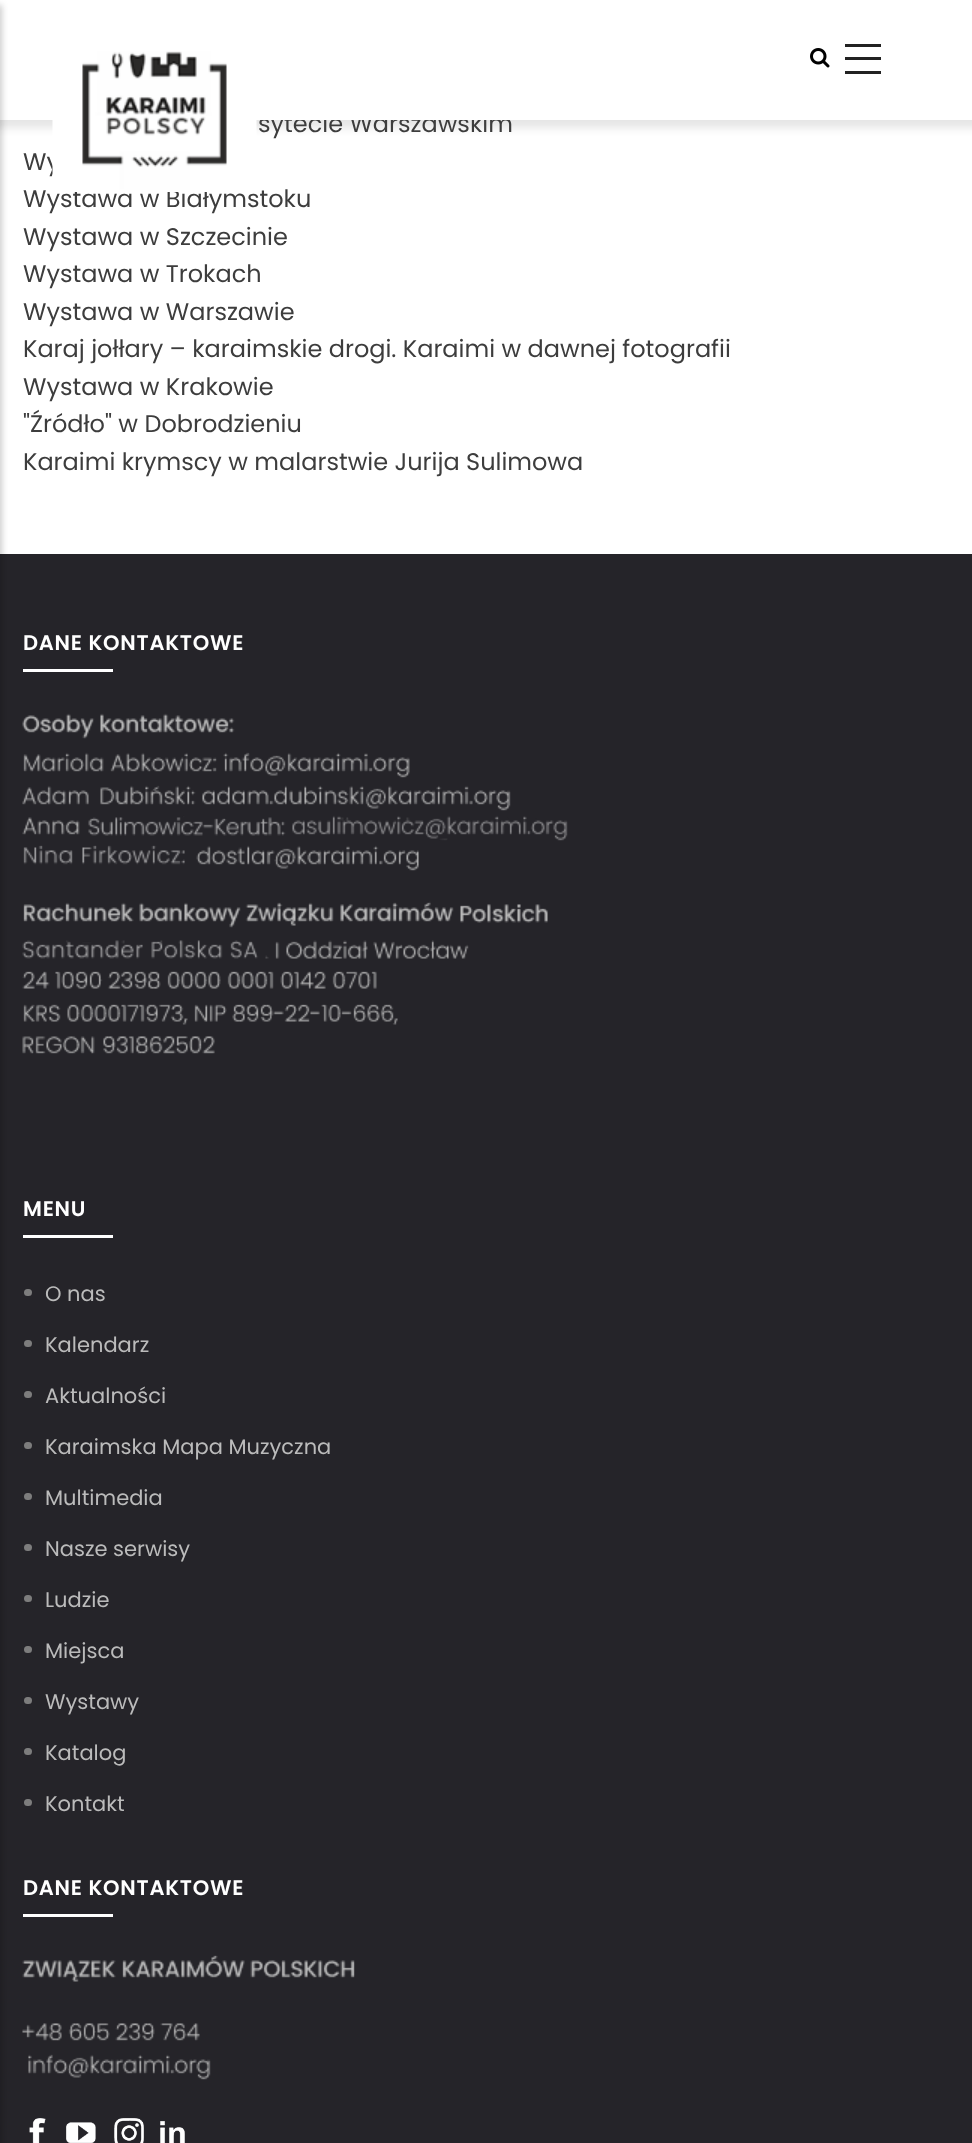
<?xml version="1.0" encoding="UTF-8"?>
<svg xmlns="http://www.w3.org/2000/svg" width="972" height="2143">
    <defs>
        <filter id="blur1" x="-50%" y="-200%" width="200%" height="500%"><feGaussianBlur stdDeviation="4"/></filter>
        <filter id="blur2" x="-50%" y="-200%" width="200%" height="500%"><feGaussianBlur stdDeviation="3"/></filter>
    </defs>
    <rect width="100%" height="100%" fill="#FFFFFF"/>
    <rect x="-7" y="-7" width="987" height="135" fill="#000000" fill-opacity="0.1" filter="url(#blur1)"/>
    <text x="258" y="132" font-family="Poppins" font-size="24" fill="#3D3D3D">sytecie Warszawskim</text>
    <rect x="0" y="0" width="972" height="120" fill="#FFFFFF"/>
    <rect x="0" y="554" width="972" height="1589" fill="#252429"/>
    <rect x="-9" y="5" width="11" height="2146" fill="#000000" fill-opacity="0.2" filter="url(#blur2)"/>
    <image x="810" y="48" width="20" height="20" href="img_01.png"/>
    <rect x="845" y="44" width="36" height="3" fill="#222222"/>
    <rect x="845" y="57" width="36" height="3" fill="#222222"/>
    <rect x="845" y="71" width="36" height="3" fill="#222222"/>
    <text font-family="Poppins" font-size="24" fill="#3D3D3D">
        <tspan x="23" y="170">Wy</tspan>
        <tspan x="23" y="207">Wystawa w Białymstoku</tspan>
    </text>
    <image x="52" y="51" width="205" height="141" href="img_02.png"/>
    <text font-family="Poppins" font-size="24" fill="#3D3D3D">
        <tspan x="23" y="245">Wystawa w Szczecinie</tspan>
        <tspan x="23" y="282">Wystawa w Trokach</tspan>
        <tspan x="23" y="320">Wystawa w Warszawie</tspan>
        <tspan x="23" y="357">Karaj jołłary – karaimskie drogi. Karaimi w dawnej fotografii</tspan>
        <tspan x="23" y="395">Wystawa w Krakowie</tspan>
        <tspan x="23" y="432">"Źródło" w Dobrodzieniu</tspan>
        <tspan x="23" y="470">Karaimi krymscy w malarstwie Jurija Sulimowa</tspan>
    </text>
    <text x="23" y="650" font-family="Poppins" font-size="21" font-weight="600" letter-spacing="0.75" fill="#FFFFFF">DANE KONTAKTOWE</text>
    <rect x="23" y="669" width="90" height="3" fill="#FFFFFF"/>
    <image x="22" y="713" width="546" height="341" href="img_03.png"/>
    <text x="23" y="1216" font-family="Poppins" font-size="21" font-weight="600" letter-spacing="0.75" fill="#FFFFFF">MENU</text>
    <rect x="23" y="1235" width="90" height="3" fill="#FFFFFF"/>
    <rect x="24" y="1289" width="8" height="7" rx="3.5" fill="#7D7D7D"/>
    <text x="45" y="1301" font-family="Poppins" font-size="21" fill="#BBBBBB">O nas</text>
    <rect x="24" y="1340" width="8" height="7" rx="3.5" fill="#7D7D7D"/>
    <text x="45" y="1352" font-family="Poppins" font-size="21" fill="#BBBBBB">Kalendarz</text>
    <rect x="24" y="1391" width="8" height="7" rx="3.5" fill="#7D7D7D"/>
    <text x="45" y="1403" font-family="Poppins" font-size="21" fill="#BBBBBB">Aktualności</text>
    <rect x="24" y="1442" width="8" height="7" rx="3.5" fill="#7D7D7D"/>
    <text x="45" y="1454" font-family="Poppins" font-size="21" fill="#BBBBBB">Karaimska Mapa Muzyczna</text>
    <rect x="24" y="1493" width="8" height="7" rx="3.5" fill="#7D7D7D"/>
    <text x="45" y="1505" font-family="Poppins" font-size="21" fill="#BBBBBB">Multimedia</text>
    <rect x="24" y="1544" width="8" height="7" rx="3.5" fill="#7D7D7D"/>
    <text x="45" y="1556" font-family="Poppins" font-size="21" fill="#BBBBBB">Nasze serwisy</text>
    <rect x="24" y="1595" width="8" height="7" rx="3.5" fill="#7D7D7D"/>
    <text x="45" y="1607" font-family="Poppins" font-size="21" fill="#BBBBBB">Ludzie</text>
    <rect x="24" y="1646" width="8" height="7" rx="3.5" fill="#7D7D7D"/>
    <text x="45" y="1658" font-family="Poppins" font-size="21" fill="#BBBBBB">Miejsca</text>
    <rect x="24" y="1697" width="8" height="7" rx="3.5" fill="#7D7D7D"/>
    <text x="45" y="1709" font-family="Poppins" font-size="21" fill="#BBBBBB">Wystawy</text>
    <rect x="24" y="1748" width="8" height="7" rx="3.5" fill="#7D7D7D"/>
    <text x="45" y="1760" font-family="Poppins" font-size="21" fill="#BBBBBB">Katalog</text>
    <rect x="24" y="1799" width="8" height="7" rx="3.5" fill="#7D7D7D"/>
    <text x="45" y="1811" font-family="Poppins" font-size="21" fill="#BBBBBB">Kontakt</text>
    <text x="23" y="1895" font-family="Poppins" font-size="21" font-weight="600" letter-spacing="0.75" fill="#FFFFFF">DANE KONTAKTOWE</text>
    <rect x="23" y="1914" width="90" height="3" fill="#FFFFFF"/>
    <image x="22" y="1955" width="333" height="125" href="img_04.png"/>
    <image x="29" y="2118" width="17" height="25" href="img_05.png"/>
    <image x="66" y="2122" width="30" height="21" href="img_06.png"/>
    <image x="114" y="2118" width="30" height="25" href="img_07.png"/>
    <image x="160" y="2121" width="25" height="22" href="img_08.png"/>
</svg>
